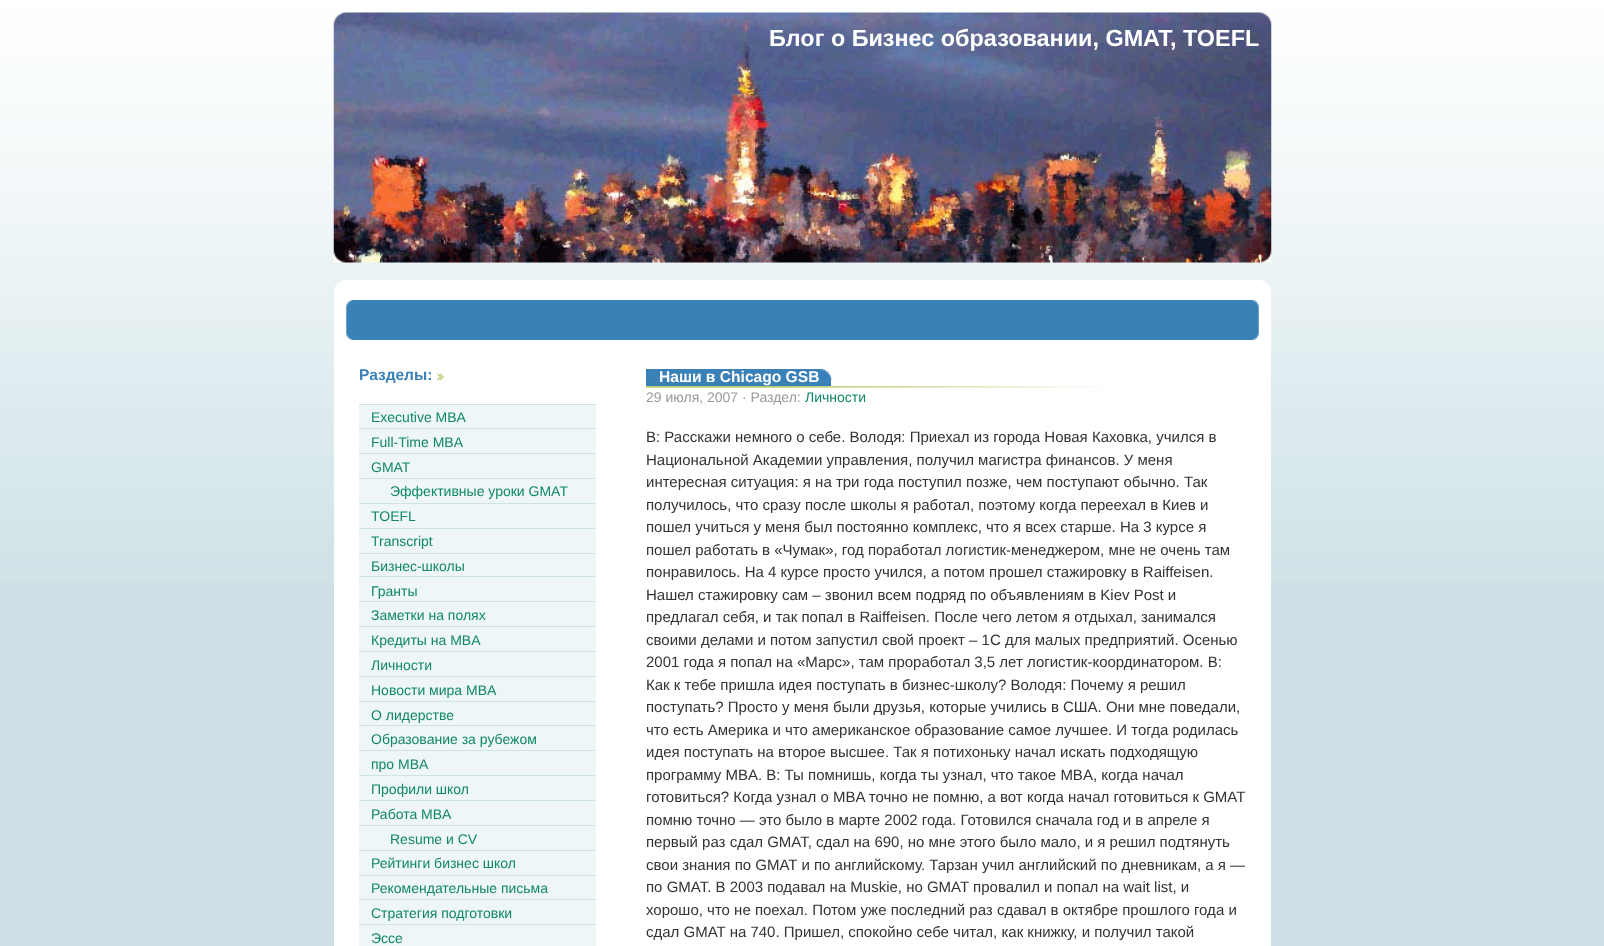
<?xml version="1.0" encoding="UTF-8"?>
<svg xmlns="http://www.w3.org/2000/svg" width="1604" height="946">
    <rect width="100%" height="100%" fill="#CCE0E5"/>
    <image x="0" y="0" width="1604" height="582" href="img_01.png"/>
    <image x="333" y="12" width="939" height="251" href="img_02.png"/>
    <text x="769" y="46" font-family="Liberation Sans" font-size="23.4" font-weight="700" fill="#FFFFFF">Блог о Бизнес образовании, GMAT, TOEFL</text>
    <image x="333" y="280" width="939" height="20" href="img_03.png"/>
    <rect x="334" y="300" width="937" height="646" fill="#FFFFFF"/>
    <image x="346" y="300" width="913" height="40" href="img_04.png"/>
    <text x="359" y="380" font-family="Liberation Sans" font-size="15.5" font-weight="700" fill="#3A81B8">Разделы:</text>
    <image x="437" y="373" width="7" height="7" href="img_05.png"/>
    <rect x="359" y="405" width="237" height="541" fill="#EEF6F8"/>
    <rect x="359" y="404" width="237" height="1" fill="#CEE3E6"/>
    <rect x="359" y="428" width="237" height="1" fill="#CEE3E6"/>
    <text x="371" y="422" font-family="Liberation Sans" font-size="14" fill="#118768">Executive MBA</text>
    <rect x="359" y="453" width="237" height="1" fill="#CEE3E6"/>
    <text x="371" y="447" font-family="Liberation Sans" font-size="14" fill="#118768">Full-Time MBA</text>
    <rect x="359" y="503" width="237" height="1" fill="#CEE3E6"/>
    <text x="371" y="472" font-family="Liberation Sans" font-size="14" fill="#118768">GMAT</text>
    <rect x="359" y="478" width="237" height="1" fill="#CEE3E6"/>
    <text x="390" y="496" font-family="Liberation Sans" font-size="14" fill="#118768">Эффективные уроки GMAT</text>
    <rect x="359" y="528" width="237" height="1" fill="#CEE3E6"/>
    <text x="371" y="521" font-family="Liberation Sans" font-size="14" fill="#118768">TOEFL</text>
    <rect x="359" y="553" width="237" height="1" fill="#CEE3E6"/>
    <text x="371" y="546" font-family="Liberation Sans" font-size="14" fill="#118768">Transcript</text>
    <rect x="359" y="576" width="237" height="1" fill="#CEE3E6"/>
    <text x="371" y="571" font-family="Liberation Sans" font-size="14" fill="#118768">Бизнес-школы</text>
    <rect x="359" y="601" width="237" height="1" fill="#CEE3E6"/>
    <text x="371" y="596" font-family="Liberation Sans" font-size="14" fill="#118768">Гранты</text>
    <rect x="359" y="626" width="237" height="1" fill="#CEE3E6"/>
    <text x="371" y="620" font-family="Liberation Sans" font-size="14" fill="#118768">Заметки на полях</text>
    <rect x="359" y="651" width="237" height="1" fill="#CEE3E6"/>
    <text x="371" y="645" font-family="Liberation Sans" font-size="14" fill="#118768">Кредиты на MBA</text>
    <rect x="359" y="676" width="237" height="1" fill="#CEE3E6"/>
    <text x="371" y="670" font-family="Liberation Sans" font-size="14" fill="#118768">Личности</text>
    <rect x="359" y="701" width="237" height="1" fill="#CEE3E6"/>
    <text x="371" y="695" font-family="Liberation Sans" font-size="14" fill="#118768">Новости мира MBA</text>
    <rect x="359" y="725" width="237" height="1" fill="#CEE3E6"/>
    <text x="371" y="720" font-family="Liberation Sans" font-size="14" fill="#118768">О лидерстве</text>
    <rect x="359" y="750" width="237" height="1" fill="#CEE3E6"/>
    <text x="371" y="744" font-family="Liberation Sans" font-size="14" fill="#118768">Образование за рубежом</text>
    <rect x="359" y="775" width="237" height="1" fill="#CEE3E6"/>
    <text x="371" y="769" font-family="Liberation Sans" font-size="14" fill="#118768">про MBA</text>
    <rect x="359" y="800" width="237" height="1" fill="#CEE3E6"/>
    <text x="371" y="794" font-family="Liberation Sans" font-size="14" fill="#118768">Профили школ</text>
    <rect x="359" y="850" width="237" height="1" fill="#CEE3E6"/>
    <text x="371" y="819" font-family="Liberation Sans" font-size="14" fill="#118768">Работа MBA</text>
    <rect x="359" y="825" width="237" height="1" fill="#CEE3E6"/>
    <text x="390" y="844" font-family="Liberation Sans" font-size="14" fill="#118768">Resume и CV</text>
    <rect x="359" y="875" width="237" height="1" fill="#CEE3E6"/>
    <text x="371" y="868" font-family="Liberation Sans" font-size="14" fill="#118768">Рейтинги бизнес школ</text>
    <rect x="359" y="899" width="237" height="1" fill="#CEE3E6"/>
    <text x="371" y="893" font-family="Liberation Sans" font-size="14" fill="#118768">Рекомендательные письма</text>
    <rect x="359" y="924" width="237" height="1" fill="#CEE3E6"/>
    <text font-family="Liberation Sans" font-size="14" fill="#118768">
        <tspan x="371" y="918">Стратегия подготовки</tspan>
        <tspan x="371" y="943">Эссе</tspan>
    </text>
    <rect x="646" y="369" width="185" height="17" fill="#3A81B8"/>
    <image x="820" y="368" width="12" height="13" href="img_06.png"/>
    <text x="659" y="382" font-family="Liberation Sans" font-size="15.6" font-weight="700" fill="#FFFFFF">Наши в Chicago GSB</text>
    <image x="646" y="386" width="457" height="2" href="img_07.png"/>
    <text x="646" y="402" font-family="Liberation Sans" font-size="14" fill="#999999">29 июля, 2007 · Раздел:</text>
    <text x="805" y="402" font-family="Liberation Sans" font-size="14" fill="#118768">Личности</text>
    <text font-family="Liberation Sans" font-size="15" fill="#333333">
        <tspan x="646" y="442">В: Расскажи немного о себе. Володя: Приехал из города Новая Каховка, учился в</tspan>
        <tspan x="646" y="465">Национальной Академии управления, получил магистра финансов. У меня</tspan>
        <tspan x="646" y="487">интересная ситуация: я на три года поступил позже, чем поступают обычно. Так</tspan>
        <tspan x="646" y="510">получилось, что сразу после школы я работал, поэтому когда переехал в Киев и</tspan>
        <tspan x="646" y="532">пошел учиться у меня был постоянно комплекс, что я всех старше. На 3 курсе я</tspan>
        <tspan x="646" y="555">пошел работать в «Чумак», год поработал логистик-менеджером, мне не очень там</tspan>
        <tspan x="646" y="577">понравилось. На 4 курсе просто учился, а потом прошел стажировку в Raiffeisen.</tspan>
        <tspan x="646" y="600">Нашел стажировку сам – звонил всем подряд по объявлениям в Kiev Post и</tspan>
        <tspan x="646" y="622">предлагал себя, и так попал в Raiffeisen. После чего летом я отдыхал, занимался</tspan>
        <tspan x="646" y="645">своими делами и потом запустил свой проект – 1С для малых предприятий. Осенью</tspan>
        <tspan x="646" y="667">2001 года я попал на «Марс», там проработал 3,5 лет логистик-координатором. В:</tspan>
        <tspan x="646" y="690">Как к тебе пришла идея поступать в бизнес-школу? Володя: Почему я решил</tspan>
        <tspan x="646" y="712">поступать? Просто у меня были друзья, которые учились в США. Они мне поведали,</tspan>
        <tspan x="646" y="735">что есть Америка и что американское образование самое лучшее. И тогда родилась</tspan>
        <tspan x="646" y="757">идея поступать на второе высшее. Так я потихоньку начал искать подходящую</tspan>
        <tspan x="646" y="780">программу MBA. В: Ты помнишь, когда ты узнал, что такое MBA, когда начал</tspan>
        <tspan x="646" y="802">готовиться? Когда узнал о MBA точно не помню, а вот когда начал готовиться к GMAT</tspan>
        <tspan x="646" y="825">помню точно — это было в марте 2002 года. Готовился сначала год и в апреле я</tspan>
        <tspan x="646" y="847">первый раз сдал GMAT, сдал на 690, но мне этого было мало, и я решил подтянуть</tspan>
        <tspan x="646" y="870">свои знания по GMAT и по английскому. Тарзан учил английский по дневникам, а я —</tspan>
        <tspan x="646" y="892">по GMAT. В 2003 подавал на Muskie, но GMAT провалил и попал на wait list, и</tspan>
        <tspan x="646" y="915">хорошо, что не поехал. Потом уже последний раз сдавал в октябре прошлого года и</tspan>
        <tspan x="646" y="937">сдал GMAT на 740. Пришел, спокойно себе читал, как книжку, и получил такой</tspan>
    </text>
</svg>
